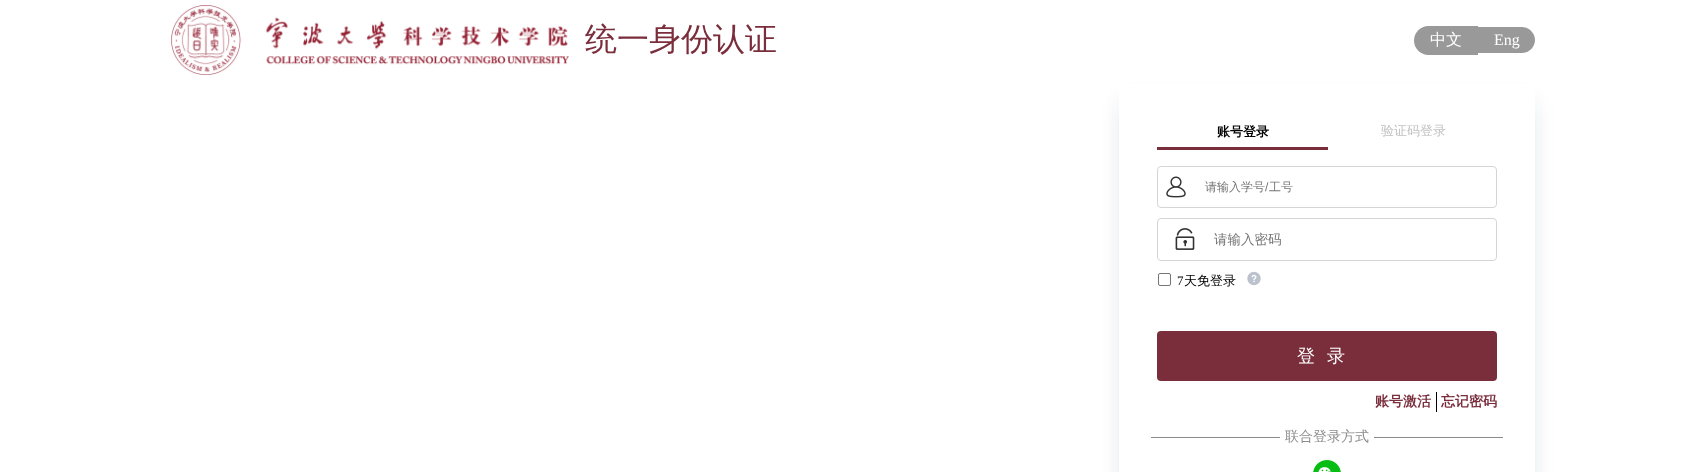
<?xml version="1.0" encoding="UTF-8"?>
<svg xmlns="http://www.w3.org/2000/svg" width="1706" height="472">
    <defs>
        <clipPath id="clip1"><path d="M 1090 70 H 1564 V 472 H 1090 Z M 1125 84 H 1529 C 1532.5 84 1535 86.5 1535 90 V 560 C 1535 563.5 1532.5 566 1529 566 H 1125 C 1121.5 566 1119 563.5 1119 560 V 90 C 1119 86.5 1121.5 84 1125 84 Z" clip-rule="evenodd"/></clipPath>
        <filter id="blur1" x="-50%" y="-200%" width="200%" height="500%"><feGaussianBlur stdDeviation="11"/></filter>
    </defs>
    <rect width="100%" height="100%" fill="#FFFFFF"/>
    <image x="171" y="5" width="398" height="70" href="img_01.png"/>
    <text x="585" y="50" font-family="WenQuanYi Zen Hei" font-size="32" font-weight="500" fill="#7A2E3C">统一身份认证</text>
    <path d="M 1428.5 26 H 1478 V 55 H 1428.5 C 1420.5 55 1414 48.5 1414 40.5 C 1414 32.5 1420.5 26 1428.5 26 Z" fill="#999999"/>
    <text x="1430" y="45" font-family="WenQuanYi Zen Hei" font-size="16" font-weight="500" fill="#FFFFFF">中文</text>
    <path d="M 1478 27 H 1522 C 1529 27 1535 33 1535 40 C 1535 47 1529 53 1522 53 H 1478 Z" fill="#999999"/>
    <text x="1494" y="45" font-family="Liberation Serif" font-size="16" fill="#FFFFFF">Eng</text>
    <g clip-path="url(#clip1)">
        <rect x="1124" y="104" width="406" height="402" rx="1" fill="#284B60" fill-opacity="0.18" filter="url(#blur1)"/>
    </g>
    <rect x="1157" y="147" width="171" height="3" fill="#7A2E3C"/>
    <text x="1217" y="136" font-family="WenQuanYi Zen Hei" font-size="13" font-weight="700" fill="#000000">账号登录</text>
    <text x="1381" y="135" font-family="WenQuanYi Zen Hei" font-size="13" font-weight="500" fill="#C1C1C1">验证码登录</text>
    <rect x="1157.5" y="166.5" width="339" height="41" rx="3.5" fill="none" stroke="#D5D5D5"/>
    <image x="1166" y="176" width="20" height="22" href="img_02.png"/>
    <text x="1205" y="191" font-family="WenQuanYi Zen Hei" font-size="12" font-weight="500" fill="#757575">请输入学号</text>
    <text x="1265" y="191" font-family="Liberation Sans" font-size="12" fill="#757575">/</text>
    <text x="1269" y="191" font-family="WenQuanYi Zen Hei" font-size="12" font-weight="500" fill="#757575">工号</text>
    <rect x="1157.5" y="218.5" width="339" height="42" rx="3.5" fill="none" stroke="#D5D5D5"/>
    <image x="1175" y="228" width="20" height="22" href="img_03.png"/>
    <text x="1214" y="244" font-family="WenQuanYi Zen Hei" font-size="13.5" font-weight="500" fill="#757575">请输入密码</text>
    <rect x="1158.5" y="273.5" width="12" height="12" rx="1.5" fill="none" stroke="#767676"/>
    <text x="1177" y="285" font-family="Liberation Serif" font-size="13" fill="#000000">7</text>
    <text x="1184" y="285" font-family="WenQuanYi Zen Hei" font-size="13" font-weight="500" fill="#000000">天免登录</text>
    <image x="1247" y="271" width="14" height="15" href="img_04.png"/>
    <rect x="1157" y="331" width="340" height="50" rx="4" fill="#7A2E3C"/>
    <text x="1297" y="362" font-family="WenQuanYi Zen Hei" font-size="18" font-weight="500" letter-spacing="12" fill="#FFFFFF">登录</text>
    <rect x="1436" y="392" width="1" height="20" fill="#000000"/>
    <text x="1375" y="406" font-family="WenQuanYi Zen Hei" font-size="14" font-weight="700" fill="#7A2E3C">账号激活</text>
    <text x="1441" y="406" font-family="WenQuanYi Zen Hei" font-size="14" font-weight="700" fill="#7A2E3C">忘记密码</text>
    <rect x="1151" y="437" width="129" height="1" fill="#8C8C8C"/>
    <text x="1285" y="441" font-family="WenQuanYi Zen Hei" font-size="14" font-weight="500" fill="#8C8C8C">联合登录方式</text>
    <rect x="1374" y="437" width="129" height="1" fill="#8C8C8C"/>
    <image x="1313" y="460" width="28" height="12" href="img_05.png"/>
</svg>
